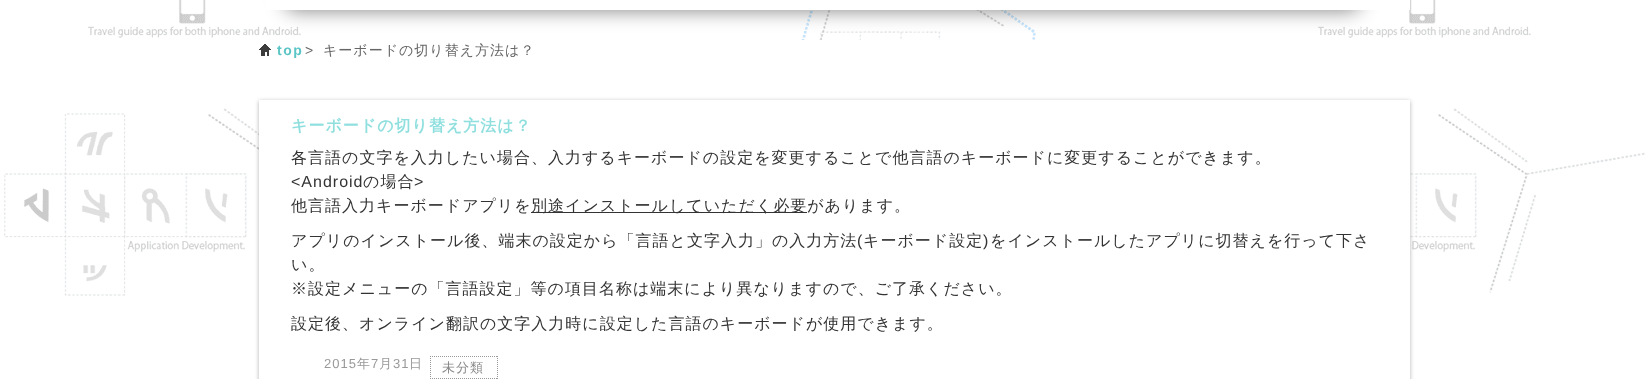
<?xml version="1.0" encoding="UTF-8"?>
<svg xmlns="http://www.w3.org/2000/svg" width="1645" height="379">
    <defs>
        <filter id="blur1" x="-50%" y="-200%" width="200%" height="500%"><feGaussianBlur stdDeviation="10"/></filter>
        <clipPath id="clip1"><path d="M 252 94 H 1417 V 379 H 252 Z M 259 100 H 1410 V 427 H 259 Z" clip-rule="evenodd"/></clipPath>
        <filter id="blur2" x="-50%" y="-200%" width="200%" height="500%"><feGaussianBlur stdDeviation="2"/></filter>
    </defs>
    <rect width="100%" height="100%" fill="#FFFFFF"/>
    <image x="4" y="0" width="1641" height="352" href="img_01.png"/>
    <rect x="285" y="-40" width="1075" height="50" rx="10" fill="#000000" fill-opacity="0.5" filter="url(#blur1)"/>
    <rect x="266" y="0" width="1144" height="10" fill="#FFFFFF"/>
    <rect x="259" y="40" width="1151" height="312" fill="#FFFFFF"/>
    <image x="259" y="44" width="12" height="12" href="img_02.png"/>
    <text x="277" y="55" font-family="Liberation Sans" font-size="14" font-weight="700" letter-spacing="1.5" fill="#5CC5C5">top</text>
    <text x="305" y="55" font-family="Liberation Sans" font-size="14" letter-spacing="1" fill="#666666">&gt;</text>
    <text x="323" y="55" font-family="WenQuanYi Zen Hei" font-size="14" font-weight="500" letter-spacing="1" fill="#666666">キーボードの切り替え方法は？</text>
    <g clip-path="url(#clip1)">
        <rect x="259" y="101" width="1151" height="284" fill="#000000" fill-opacity="0.3" filter="url(#blur2)"/>
    </g>
    <text x="291" y="131" font-family="WenQuanYi Zen Hei" font-size="16" font-weight="700" letter-spacing="1" fill="#90DFDF">キーボードの切り替え方法は？</text>
    <text x="291" y="163" font-family="WenQuanYi Zen Hei" font-size="16" font-weight="500" letter-spacing="1" fill="#333333">各言語の文字を入力したい場合、入力するキーボードの設定を変更することで他言語のキーボードに変更することができます。</text>
    <text x="291" y="187" font-family="Liberation Sans" font-size="16" letter-spacing="1" fill="#333333">&lt;Android</text>
    <text x="363" y="187" font-family="WenQuanYi Zen Hei" font-size="16" font-weight="500" letter-spacing="1" fill="#333333">の場合</text>
    <text x="414" y="187" font-family="Liberation Sans" font-size="16" letter-spacing="1" fill="#333333">&gt;</text>
    <text x="291" y="211" font-family="WenQuanYi Zen Hei" font-size="16" font-weight="500" letter-spacing="1" fill="#333333">他言語入力キーボードアプリを</text>
    <rect x="531" y="212" width="276" height="1" fill="#333333"/>
    <text x="531" y="211" font-family="WenQuanYi Zen Hei" font-size="16" font-weight="500" letter-spacing="1" fill="#333333">別途インストールしていただく必要があります。</text>
    <text x="291" y="246" font-family="WenQuanYi Zen Hei" font-size="16" font-weight="500" letter-spacing="1" fill="#333333">アプリのインストール後、端末の設定から「言語と文字入力」の入力方法</text>
    <text x="857" y="246" font-family="Liberation Sans" font-size="16" letter-spacing="1" fill="#333333">(</text>
    <text x="863" y="246" font-family="WenQuanYi Zen Hei" font-size="16" font-weight="500" letter-spacing="1" fill="#333333">キーボード設定</text>
    <text x="983" y="246" font-family="Liberation Sans" font-size="16" letter-spacing="1" fill="#333333">)</text>
    <text x="990" y="246" font-family="WenQuanYi Zen Hei" font-size="16" font-weight="500" letter-spacing="1" fill="#333333">をインストールしたアプリに切替えを行って下さ</text>
    <text font-family="WenQuanYi Zen Hei" font-size="16" font-weight="500" letter-spacing="1" fill="#333333">
        <tspan x="291" y="270">い。</tspan>
        <tspan x="291" y="294">※設定メニューの「言語設定」等の項目名称は端末により異なりますので、ご了承ください。</tspan>
    </text>
    <text x="291" y="329" font-family="WenQuanYi Zen Hei" font-size="16" font-weight="500" letter-spacing="1" fill="#333333">設定後、オンライン翻訳の文字入力時に設定した言語のキーボードが使用できます。</text>
    <text x="324" y="368" font-family="Liberation Sans" font-size="13" letter-spacing="1" fill="#999999">2015</text>
    <text x="357" y="368" font-family="WenQuanYi Zen Hei" font-size="13" font-weight="500" letter-spacing="1" fill="#999999">年</text>
    <text x="371" y="368" font-family="Liberation Sans" font-size="13" letter-spacing="1" fill="#999999">7</text>
    <text x="379" y="368" font-family="WenQuanYi Zen Hei" font-size="13" font-weight="500" letter-spacing="1" fill="#999999">月</text>
    <text x="393" y="368" font-family="Liberation Sans" font-size="13" letter-spacing="1" fill="#999999">31</text>
    <text x="409" y="368" font-family="WenQuanYi Zen Hei" font-size="13" font-weight="500" letter-spacing="1" fill="#999999">日</text>
    <path d="M 430 356.5 H 498" fill="none" stroke="#999999" stroke-dasharray="1 1"/>
    <path d="M 497.5 356 V 379" fill="none" stroke="#999999" stroke-dasharray="1 1"/>
    <path d="M 430 378.5 H 498" fill="none" stroke="#999999" stroke-dasharray="1 1"/>
    <path d="M 430.5 356 V 379" fill="none" stroke="#999999" stroke-dasharray="1 1"/>
    <text x="442" y="372" font-family="WenQuanYi Zen Hei" font-size="13" font-weight="500" letter-spacing="1" fill="#888888">未分類</text>
</svg>
